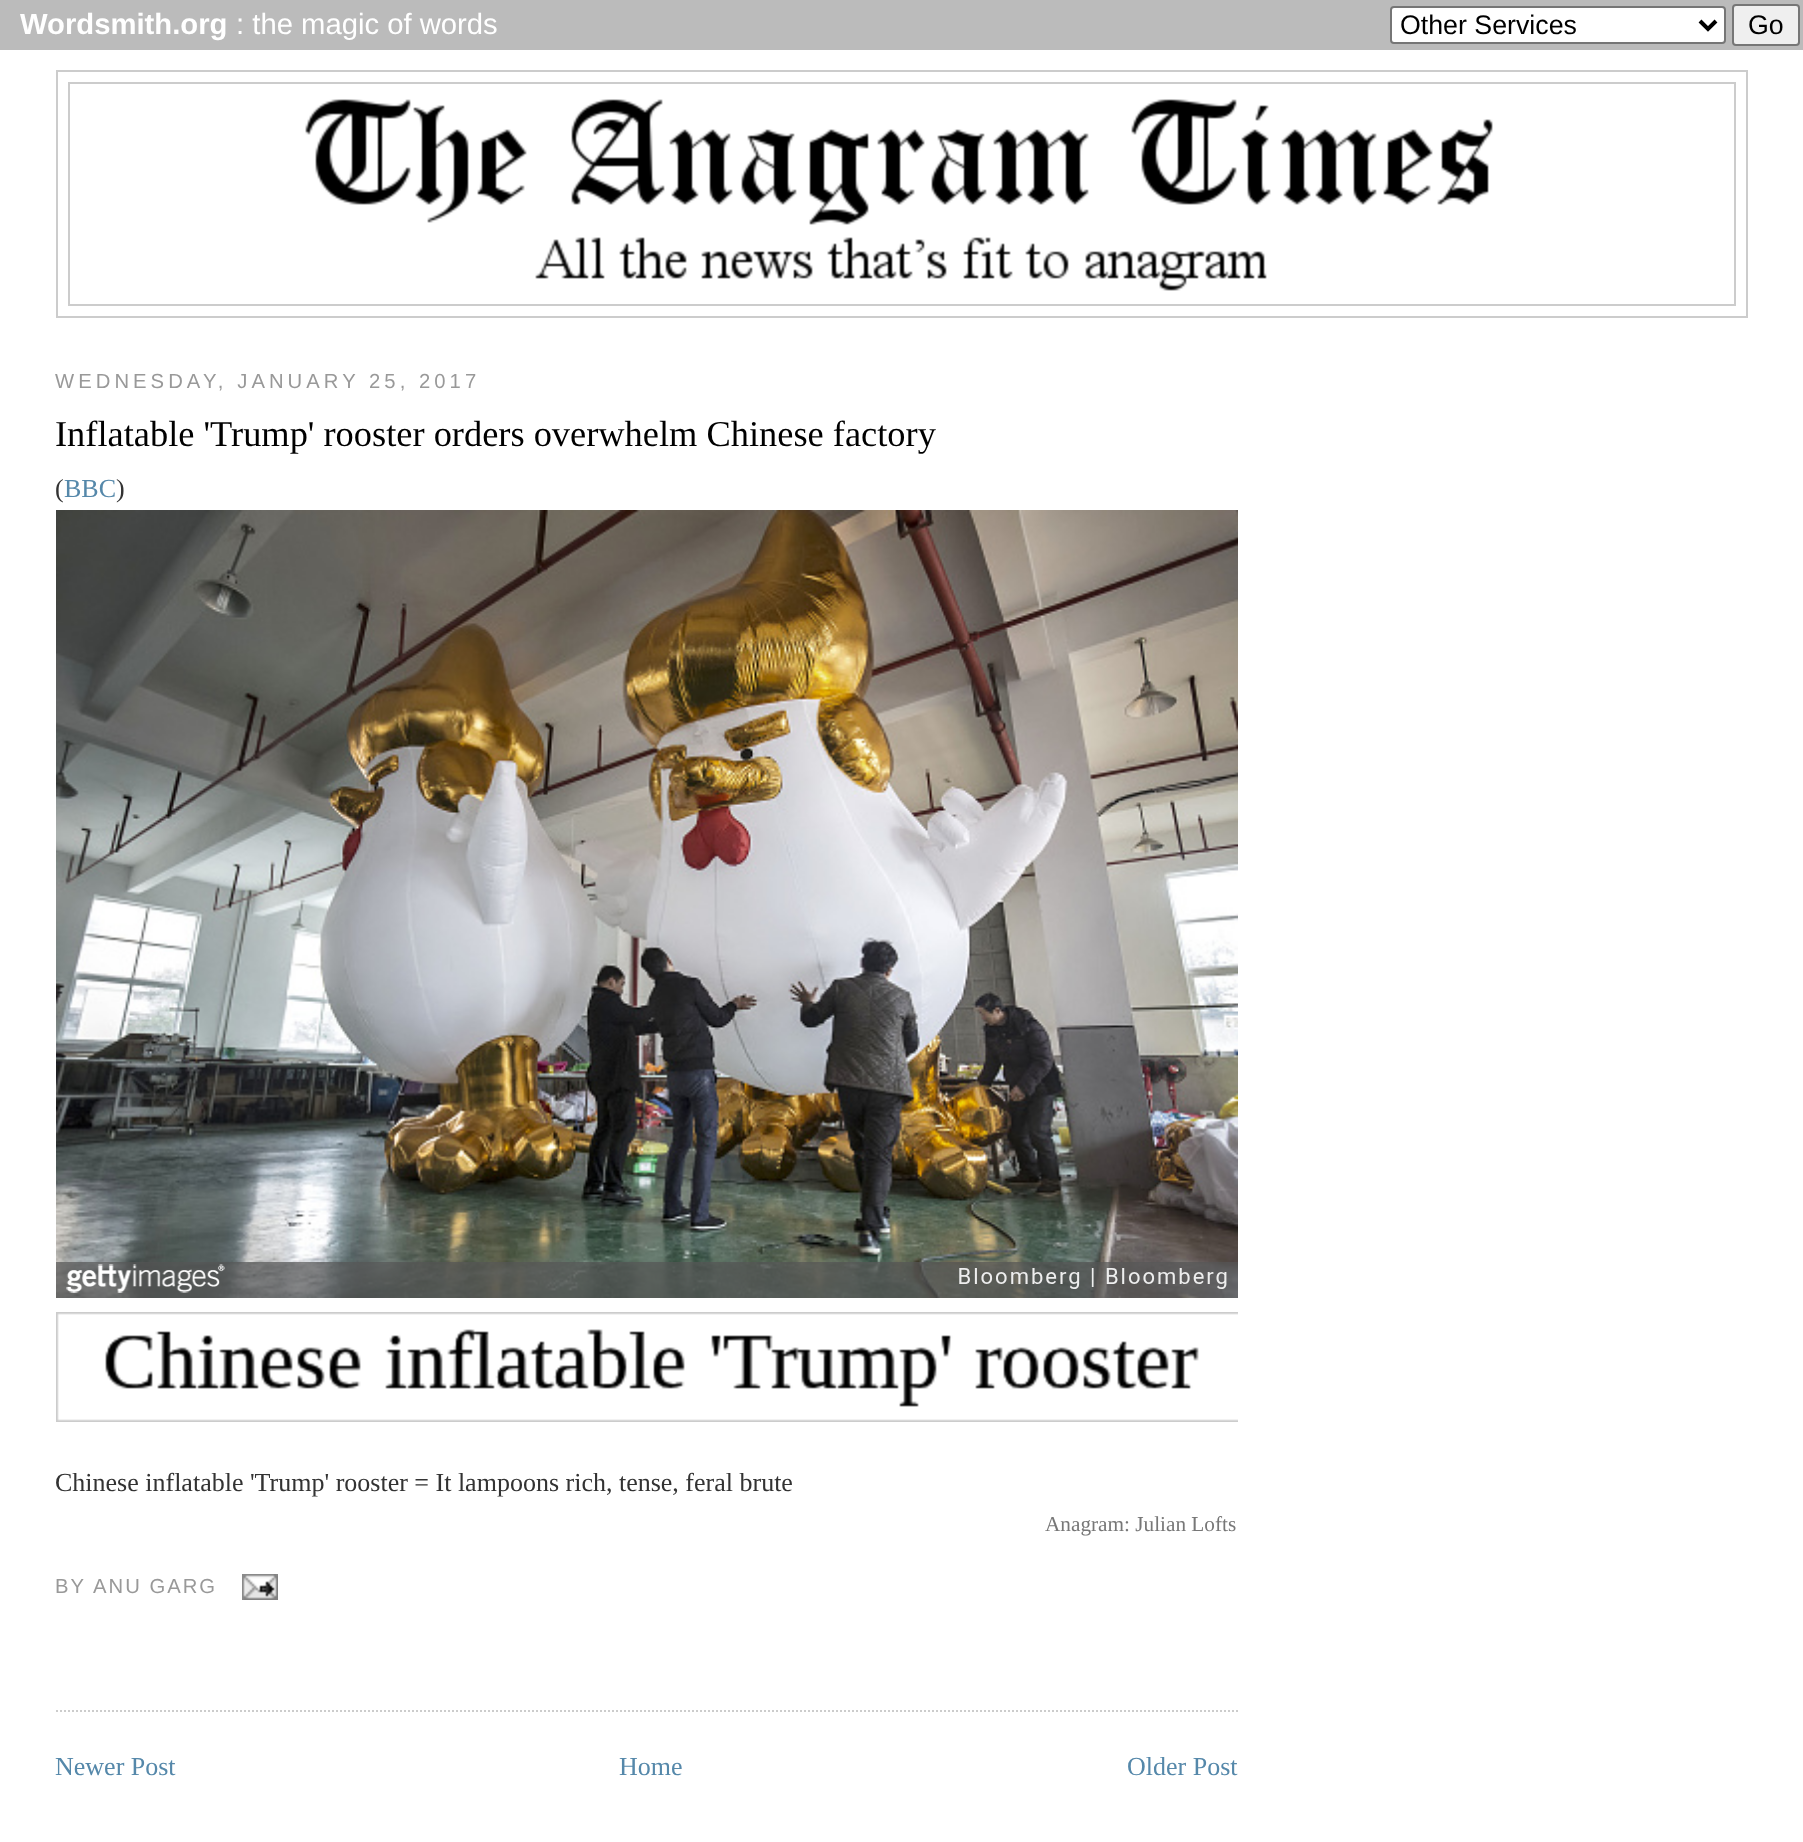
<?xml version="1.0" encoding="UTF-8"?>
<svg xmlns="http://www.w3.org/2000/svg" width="1803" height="1842">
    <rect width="100%" height="100%" fill="#FFFFFF"/>
    <rect x="0" y="0" width="1803" height="50" fill="#BBBBBB"/>
    <text x="20" y="34" font-family="Liberation Sans" font-size="29.25" font-weight="700" fill="#FFFFFF">Wordsmith.org</text>
    <text x="236" y="34" font-family="Liberation Sans" font-size="29.25" fill="#FFFFFF">: the magic of words</text>
    <rect x="1391" y="7" width="334" height="36" rx="3" fill="#FFFFFF" stroke="#767676" stroke-width="2"/>
    <path d="M 1700 21 L 1708 29 L 1716 21" fill="none" stroke="#000000" stroke-width="4"/>
    <text x="1400" y="34" font-family="Liberation Sans" font-size="26.75" fill="#000000">Other Services</text>
    <rect x="1733" y="5" width="66" height="40" rx="3" fill="#EFEFEF" stroke="#767676" stroke-width="2"/>
    <text x="1748" y="34" font-family="Liberation Sans" font-size="26.75" fill="#000000">Go</text>
    <rect x="57" y="71" width="1690" height="246" fill="none" stroke="#CCCCCC" stroke-width="2"/>
    <rect x="69" y="83" width="1666" height="222" fill="none" stroke="#CCCCCC" stroke-width="2"/>
    <image x="305" y="99" width="1188" height="192" href="img_01.png"/>
    <text x="55" y="388" font-family="Liberation Sans" font-size="20.25" letter-spacing="4.05" fill="#999999">WEDNESDAY, JANUARY 25, 2017</text>
    <path d="M 56 1711 H 1238" fill="none" stroke="#CCCCCC" stroke-width="2" stroke-dasharray="2 2"/>
    <text x="55" y="446" font-family="Liberation Serif" font-size="36.4" fill="#000000">Inflatable 'Trump' rooster orders overwhelm Chinese factory</text>
    <text x="55" y="497" font-family="Liberation Serif" font-size="26" fill="#333333">(</text>
    <text x="64" y="497" font-family="Liberation Serif" font-size="26" fill="#5588AA">BBC</text>
    <text x="116" y="497" font-family="Liberation Serif" font-size="26" fill="#333333">)</text>
    <image x="56" y="510" width="1182" height="788" href="img_02.png"/>
    <image x="56" y="1312" width="1182" height="110" href="img_03.png"/>
    <text x="55" y="1491" font-family="Liberation Serif" font-size="26" fill="#333333">Chinese inflatable 'Trump' rooster = It lampoons rich, tense, feral brute</text>
    <text x="1045" y="1531" font-family="Liberation Serif" font-size="21.25" fill="#777777">Anagram: Julian Lofts</text>
    <text x="55" y="1593" font-family="Liberation Sans" font-size="20.25" letter-spacing="2" fill="#999999">BY</text>
    <text x="93" y="1593" font-family="Liberation Sans" font-size="20.25" letter-spacing="2" fill="#999999">ANU GARG</text>
    <image x="242" y="1574" width="36" height="26" href="img_04.png"/>
    <text x="55" y="1775" font-family="Liberation Serif" font-size="26" fill="#5588AA">Newer Post</text>
    <text x="619" y="1775" font-family="Liberation Serif" font-size="26" fill="#5588AA">Home</text>
    <text x="1127" y="1775" font-family="Liberation Serif" font-size="26" fill="#5588AA">Older Post</text>
</svg>
